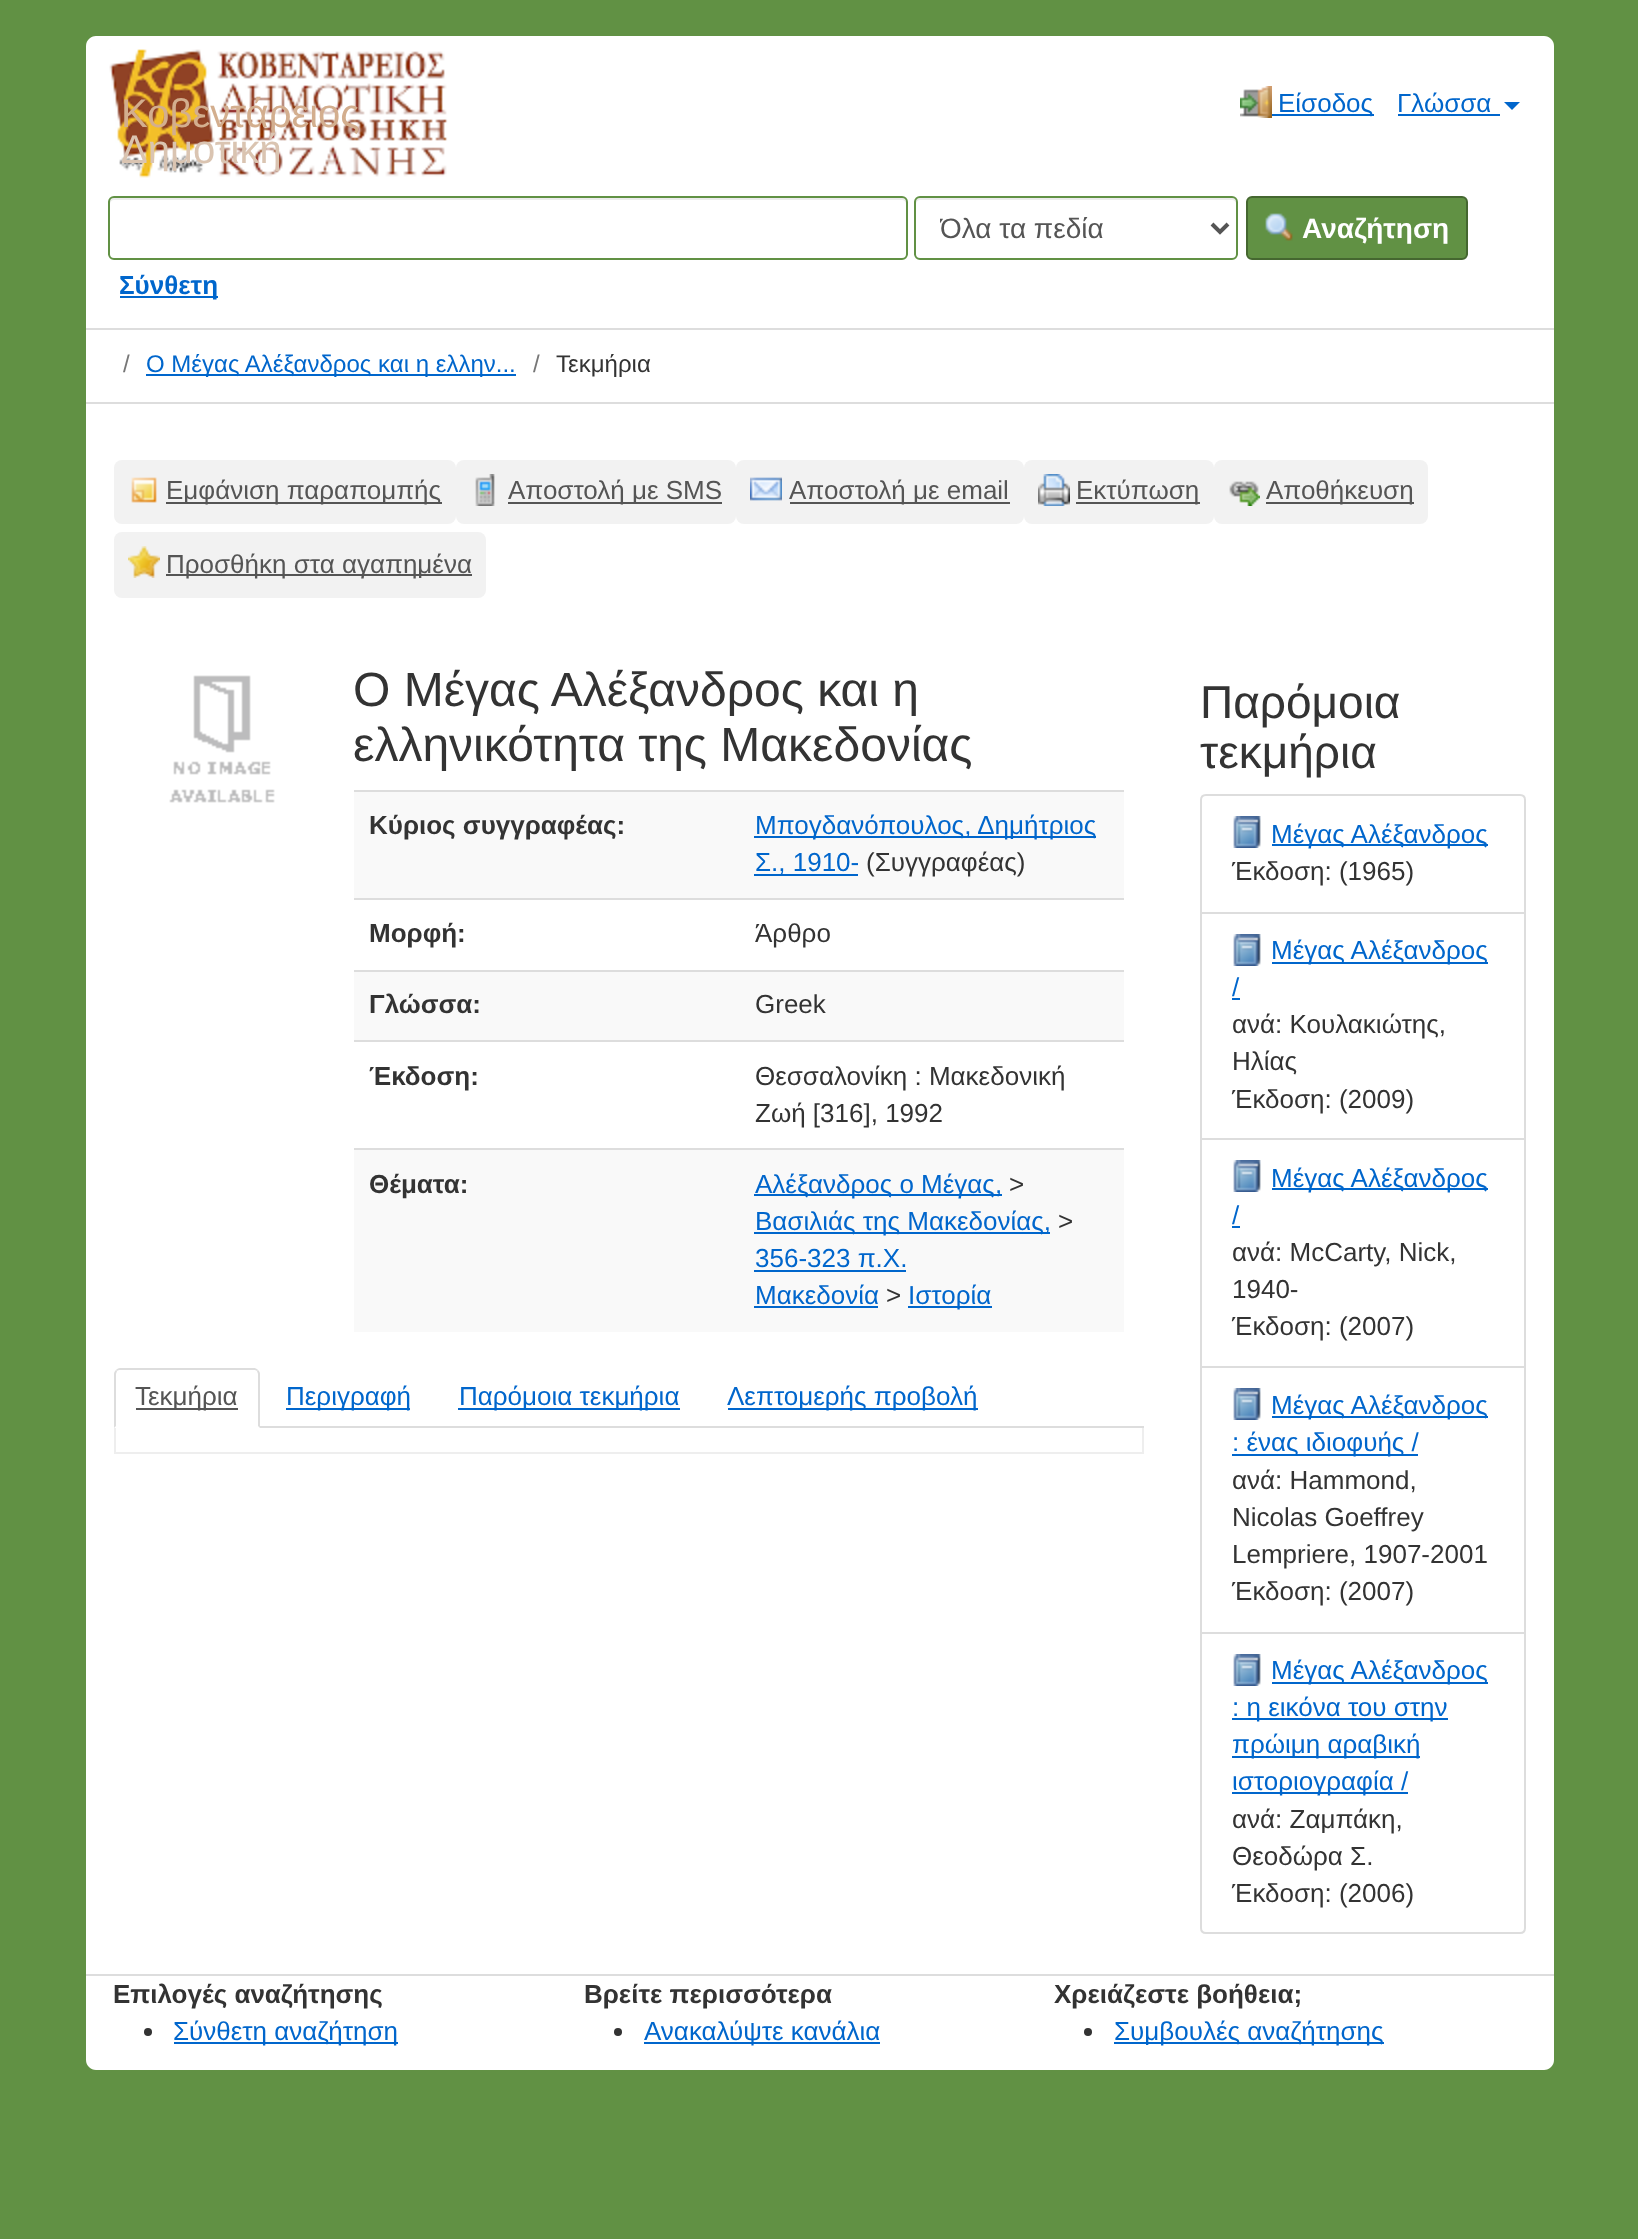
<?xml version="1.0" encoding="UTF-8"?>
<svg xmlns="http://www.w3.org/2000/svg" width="1638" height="2239">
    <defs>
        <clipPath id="clip1"><rect x="940" y="210" width="248" height="36"/></clipPath>
    </defs>
    <rect width="100%" height="100%" fill="#619144"/>
    <path d="M 96 36 H 1544 C 1549.5 36 1554 40.5 1554 46 V 180 H 86 V 46 C 86 40.5 90.5 36 96 36 Z" fill="#FFFFFF"/>
    <image x="109" y="49" width="339" height="129" href="img_01.png"/>
    <text x="121" y="127" font-family="Liberation Sans" font-size="40" fill="#D3AE8E">Κοβεντάρειος</text>
    <text x="121" y="163" font-family="Liberation Sans" font-size="40" fill="#DAC4B1">Δημοτική</text>
    <image x="1240" y="86" width="32" height="32" href="img_02.png"/>
    <rect x="1272" y="114" width="102" height="2" fill="#0066CC"/>
    <text x="1278" y="112" font-family="Liberation Sans" font-size="26" fill="#0066CC">Είσοδος</text>
    <text x="1397" y="112" font-family="Liberation Sans" font-size="26" fill="#0066CC">Γλώσσα</text>
    <rect x="1398" y="114" width="102" height="2" fill="#0066CC"/>
    <path d="M 1504 102 H 1520 L 1512 110 Z" fill="#0066CC"/>
    <rect x="86" y="180" width="1468" height="148" fill="#FFFFFF"/>
    <path d="M 114 200 H 902 C 904 200 906 202 906 204 V 202 C 906 200 904 198 902 198 H 114 C 112 198 110 200 110 202 V 204 C 110 202 112 200 114 200 Z" fill="#ECECEC"/>
    <rect x="109" y="197" width="798" height="62" rx="5" fill="none" stroke="#619144" stroke-width="2"/>
    <path d="M 920 200 H 1232 C 1234 200 1236 202 1236 204 C 1236 201 1236 198 1232 198 H 920 C 916 198 916 201 916 204 C 916 202 918 200 920 200 Z" fill="#ECECEC"/>
    <rect x="915" y="197" width="322" height="62" rx="5" fill="none" stroke="#619144" stroke-width="2"/>
    <path d="M 1212 224 L 1220 232 L 1228 224" fill="none" stroke="#555555" stroke-width="4"/>
    <g clip-path="url(#clip1)">
        <text x="940" y="238" font-family="Liberation Sans" font-size="28" fill="#555555">Όλα τα πεδία</text>
    </g>
    <rect x="1247" y="197" width="220" height="62" rx="5" fill="#619144" stroke="#456730" stroke-width="2"/>
    <image x="1265" y="213" width="28" height="28" href="img_03.png"/>
    <text x="1302" y="238" font-family="Liberation Sans" font-size="28" font-weight="700" fill="#FFFFFF">Αναζήτηση</text>
    <rect x="120" y="296" width="98" height="2" fill="#0066CC"/>
    <text x="119" y="294" font-family="Liberation Sans" font-size="26" font-weight="700" fill="#0066CC">Σύνθετη</text>
    <rect x="86" y="330" width="1468" height="72" fill="#FFFFFF"/>
    <rect x="86" y="328" width="1468" height="2" fill="#DDDDDD"/>
    <rect x="86" y="402" width="1468" height="2" fill="#DDDDDD"/>
    <text x="123" y="372" font-family="Liberation Sans" font-size="24" fill="#777777">/</text>
    <rect x="146" y="374" width="370" height="2" fill="#0066CC"/>
    <text x="146" y="372" font-family="Liberation Sans" font-size="24" fill="#0066CC">Ο Μέγας Αλέξανδρος και η ελλην...</text>
    <text x="533" y="372" font-family="Liberation Sans" font-size="24" fill="#777777">/</text>
    <text x="556" y="372" font-family="Liberation Sans" font-size="24" fill="#333333">Τεκμήρια</text>
    <rect x="86" y="404" width="1468" height="1570" fill="#FFFFFF"/>
    <rect x="114" y="460" width="342" height="64" rx="8" fill="#F2F2F2"/>
    <image x="131" y="477" width="26" height="26" href="img_04.png"/>
    <rect x="166" y="502" width="276" height="2" fill="#555555"/>
    <text x="166" y="499" font-family="Liberation Sans" font-size="26" fill="#555555">Εμφάνιση παραπομπής</text>
    <rect x="456" y="460" width="280" height="64" rx="8" fill="#F2F2F2"/>
    <image x="475" y="474" width="20" height="32" href="img_05.png"/>
    <rect x="508" y="502" width="214" height="2" fill="#555555"/>
    <text x="508" y="499" font-family="Liberation Sans" font-size="26" fill="#555555">Αποστολή με SMS</text>
    <rect x="736" y="460" width="288" height="64" rx="8" fill="#F2F2F2"/>
    <image x="750" y="477" width="32" height="24" href="img_06.png"/>
    <rect x="790" y="502" width="220" height="2" fill="#555555"/>
    <text x="789" y="499" font-family="Liberation Sans" font-size="26" fill="#555555">Αποστολή με email</text>
    <rect x="1024" y="460" width="190" height="64" rx="8" fill="#F2F2F2"/>
    <image x="1038" y="474" width="32" height="32" href="img_07.png"/>
    <rect x="1076" y="502" width="124" height="2" fill="#555555"/>
    <text x="1076" y="499" font-family="Liberation Sans" font-size="26" fill="#555555">Εκτύπωση</text>
    <rect x="1214" y="460" width="214" height="64" rx="8" fill="#F2F2F2"/>
    <image x="1229" y="481" width="31" height="25" href="img_08.png"/>
    <rect x="1266" y="502" width="148" height="2" fill="#555555"/>
    <text x="1266" y="499" font-family="Liberation Sans" font-size="26" fill="#555555">Αποθήκευση</text>
    <rect x="114" y="532" width="372" height="66" rx="8" fill="#F2F2F2"/>
    <image x="128" y="546" width="32" height="32" href="img_09.png"/>
    <rect x="166" y="574" width="306" height="2" fill="#555555"/>
    <text x="166" y="573" font-family="Liberation Sans" font-size="26" fill="#555555">Προσθήκη στα αγαπημένα</text>
    <image x="169" y="675" width="106" height="128" href="img_10.png"/>
    <text font-family="Liberation Sans" font-size="48" fill="#333333">
        <tspan x="353" y="706">Ο Μέγας Αλέξανδρος και η</tspan>
        <tspan x="353" y="761">ελληνικότητα της Μακεδονίας</tspan>
    </text>
    <rect x="354" y="792" width="770" height="106" fill="#F9F9F9"/>
    <text x="369" y="834" font-family="Liberation Sans" font-size="26" font-weight="700" fill="#333333">Κύριος συγγραφέας:</text>
    <rect x="354" y="790" width="770" height="2" fill="#DDDDDD"/>
    <rect x="754" y="836" width="342" height="2" fill="#0066CC"/>
    <text x="755" y="834" font-family="Liberation Sans" font-size="26" fill="#0066CC">Μπογδανόπουλος, Δημήτριος</text>
    <rect x="754" y="874" width="104" height="2" fill="#0066CC"/>
    <text x="755" y="871" font-family="Liberation Sans" font-size="26" fill="#0066CC">Σ., 1910-</text>
    <text x="866" y="871" font-family="Liberation Sans" font-size="26" fill="#333333">(Συγγραφέας)</text>
    <text x="369" y="942" font-family="Liberation Sans" font-size="26" font-weight="700" fill="#333333">Μορφή:</text>
    <rect x="354" y="898" width="770" height="2" fill="#DDDDDD"/>
    <text x="755" y="942" font-family="Liberation Sans" font-size="26" fill="#333333">Άρθρο</text>
    <rect x="354" y="972" width="770" height="68" fill="#F9F9F9"/>
    <text x="369" y="1013" font-family="Liberation Sans" font-size="26" font-weight="700" fill="#333333">Γλώσσα:</text>
    <rect x="354" y="970" width="770" height="2" fill="#DDDDDD"/>
    <text x="755" y="1013" font-family="Liberation Sans" font-size="26" fill="#333333">Greek</text>
    <text x="369" y="1085" font-family="Liberation Sans" font-size="26" font-weight="700" fill="#333333">Έκδοση:</text>
    <rect x="354" y="1040" width="770" height="2" fill="#DDDDDD"/>
    <text font-family="Liberation Sans" font-size="26" fill="#333333">
        <tspan x="755" y="1085">Θεσσαλονίκη : Μακεδονική</tspan>
        <tspan x="755" y="1122">Ζωή [316], 1992</tspan>
    </text>
    <rect x="354" y="1150" width="770" height="182" fill="#F9F9F9"/>
    <text x="369" y="1193" font-family="Liberation Sans" font-size="26" font-weight="700" fill="#333333">Θέματα:</text>
    <rect x="354" y="1148" width="770" height="2" fill="#DDDDDD"/>
    <rect x="754" y="1194" width="248" height="2" fill="#0066CC"/>
    <text x="755" y="1193" font-family="Liberation Sans" font-size="26" fill="#0066CC">Αλέξανδρος ο Μέγας,</text>
    <text x="1009" y="1193" font-family="Liberation Sans" font-size="26" fill="#333333">&gt;</text>
    <rect x="754" y="1232" width="296" height="2" fill="#0066CC"/>
    <text x="755" y="1230" font-family="Liberation Sans" font-size="26" fill="#0066CC">Βασιλιάς της Μακεδονίας,</text>
    <text x="1058" y="1230" font-family="Liberation Sans" font-size="26" fill="#333333">&gt;</text>
    <text x="755" y="1267" font-family="Liberation Sans" font-size="26" fill="#0066CC">356-323 π.Χ.</text>
    <rect x="754" y="1270" width="152" height="2" fill="#0066CC"/>
    <text x="755" y="1304" font-family="Liberation Sans" font-size="26" fill="#0066CC">Μακεδονία</text>
    <rect x="754" y="1306" width="124" height="2" fill="#0066CC"/>
    <text x="886" y="1304" font-family="Liberation Sans" font-size="26" fill="#333333">&gt;</text>
    <rect x="908" y="1306" width="84" height="2" fill="#0066CC"/>
    <text x="908" y="1304" font-family="Liberation Sans" font-size="26" fill="#0066CC">Ιστορία</text>
    <rect x="260" y="1426" width="884" height="2" fill="#DDDDDD"/>
    <path d="M 120 1368 C 118 1368 117 1369 116 1370 L 117 1371 C 118 1370 119 1370 120 1370 H 254 C 255 1370 256 1370 257 1371 L 258 1370 C 257 1369 256 1368 254 1368 Z" fill="#DDDDDD"/>
    <path d="M 260 1428 V 1374 C 260 1372 259 1371 258 1370 L 257 1371 L 258 1374 V 1426 Z" fill="#DDDDDD"/>
    <path d="M 114 1428 L 116 1426 V 1374 L 117 1371 L 116 1370 C 115 1371 114 1372 114 1374 Z" fill="#DDDDDD"/>
    <rect x="136" y="1408" width="102" height="2" fill="#555555"/>
    <text x="135" y="1405" font-family="Liberation Sans" font-size="26" fill="#555555">Τεκμήρια</text>
    <rect x="286" y="1408" width="124" height="2" fill="#0066CC"/>
    <text x="286" y="1405" font-family="Liberation Sans" font-size="26" fill="#0066CC">Περιγραφή</text>
    <rect x="458" y="1408" width="222" height="2" fill="#0066CC"/>
    <text x="459" y="1405" font-family="Liberation Sans" font-size="26" fill="#0066CC">Παρόμοια τεκμήρια</text>
    <rect x="728" y="1408" width="250" height="2" fill="#0066CC"/>
    <text x="727" y="1405" font-family="Liberation Sans" font-size="26" fill="#0066CC">Λεπτομερής προβολή</text>
    <rect x="1142" y="1428" width="2" height="26" fill="#EEEEEE"/>
    <rect x="114" y="1452" width="1030" height="2" fill="#EEEEEE"/>
    <rect x="114" y="1428" width="2" height="26" fill="#EEEEEE"/>
    <text font-family="Liberation Sans" font-size="46" fill="#333333">
        <tspan x="1200" y="718">Παρόμοια</tspan>
        <tspan x="1200" y="768">τεκμήρια</tspan>
    </text>
    <path d="M 1206 795 H 1520 C 1523 795 1525 797 1525 800 V 913 H 1201 V 800 C 1201 797 1203 795 1206 795 Z" fill="none" stroke="#DDDDDD" stroke-width="2"/>
    <image x="1233" y="816" width="28" height="32" href="img_11.png"/>
    <rect x="1272" y="844" width="216" height="2" fill="#0066CC"/>
    <text x="1271" y="843" font-family="Liberation Sans" font-size="26" fill="#0066CC">Μέγας Αλέξανδρος</text>
    <text x="1232" y="880" font-family="Liberation Sans" font-size="26" fill="#333333">Έκδοση: (1965)</text>
    <rect x="1201" y="913" width="324" height="226" fill="none" stroke="#DDDDDD" stroke-width="2"/>
    <image x="1233" y="934" width="28" height="32" href="img_11.png"/>
    <rect x="1272" y="962" width="216" height="2" fill="#0066CC"/>
    <text x="1271" y="959" font-family="Liberation Sans" font-size="26" fill="#0066CC">Μέγας Αλέξανδρος</text>
    <text x="1232" y="996" font-family="Liberation Sans" font-size="26" fill="#0066CC">/</text>
    <rect x="1232" y="998" width="8" height="2" fill="#0066CC"/>
    <text font-family="Liberation Sans" font-size="26" fill="#333333">
        <tspan x="1232" y="1033">ανά: Κουλακιώτης,</tspan>
        <tspan x="1232" y="1070">Ηλίας</tspan>
        <tspan x="1232" y="1108">Έκδοση: (2009)</tspan>
    </text>
    <rect x="1201" y="1139" width="324" height="228" fill="none" stroke="#DDDDDD" stroke-width="2"/>
    <image x="1233" y="1160" width="28" height="32" href="img_11.png"/>
    <rect x="1272" y="1188" width="216" height="2" fill="#0066CC"/>
    <text x="1271" y="1187" font-family="Liberation Sans" font-size="26" fill="#0066CC">Μέγας Αλέξανδρος</text>
    <text x="1232" y="1224" font-family="Liberation Sans" font-size="26" fill="#0066CC">/</text>
    <rect x="1232" y="1226" width="8" height="2" fill="#0066CC"/>
    <text font-family="Liberation Sans" font-size="26" fill="#333333">
        <tspan x="1232" y="1261">ανά: McCarty, Nick,</tspan>
        <tspan x="1232" y="1298">1940-</tspan>
        <tspan x="1232" y="1335">Έκδοση: (2007)</tspan>
    </text>
    <rect x="1201" y="1367" width="324" height="266" fill="none" stroke="#DDDDDD" stroke-width="2"/>
    <image x="1233" y="1388" width="28" height="32" href="img_11.png"/>
    <rect x="1272" y="1416" width="216" height="2" fill="#0066CC"/>
    <text x="1271" y="1414" font-family="Liberation Sans" font-size="26" fill="#0066CC">Μέγας Αλέξανδρος</text>
    <rect x="1232" y="1454" width="186" height="2" fill="#0066CC"/>
    <text x="1232" y="1451" font-family="Liberation Sans" font-size="26" fill="#0066CC">: ένας ιδιοφυής /</text>
    <text font-family="Liberation Sans" font-size="26" fill="#333333">
        <tspan x="1232" y="1489">ανά: Hammond,</tspan>
        <tspan x="1232" y="1526">Nicolas Goeffrey</tspan>
        <tspan x="1232" y="1563">Lempriere, 1907-2001</tspan>
        <tspan x="1232" y="1600">Έκδοση: (2007)</tspan>
    </text>
    <path d="M 1201 1633 H 1525 V 1928 C 1525 1931 1523 1933 1520 1933 H 1206 C 1203 1933 1201 1931 1201 1928 Z" fill="#FFFFFF" stroke="#DDDDDD" stroke-width="2"/>
    <image x="1233" y="1654" width="28" height="32" href="img_11.png"/>
    <rect x="1272" y="1682" width="216" height="2" fill="#0066CC"/>
    <text x="1271" y="1679" font-family="Liberation Sans" font-size="26" fill="#0066CC">Μέγας Αλέξανδρος</text>
    <rect x="1232" y="1718" width="216" height="2" fill="#0066CC"/>
    <text x="1232" y="1716" font-family="Liberation Sans" font-size="26" fill="#0066CC">: η εικόνα του στην</text>
    <rect x="1232" y="1756" width="188" height="2" fill="#0066CC"/>
    <text x="1232" y="1753" font-family="Liberation Sans" font-size="26" fill="#0066CC">πρώιμη αραβική</text>
    <rect x="1232" y="1792" width="176" height="2" fill="#0066CC"/>
    <text x="1232" y="1790" font-family="Liberation Sans" font-size="26" fill="#0066CC">ιστοριογραφία /</text>
    <text font-family="Liberation Sans" font-size="26" fill="#333333">
        <tspan x="1232" y="1828">ανά: Ζαμπάκη,</tspan>
        <tspan x="1232" y="1865">Θεοδώρα Σ.</tspan>
        <tspan x="1232" y="1902">Έκδοση: (2006)</tspan>
    </text>
    <path d="M 86 1974 H 1554 V 2060 C 1554 2065.5 1549.5 2070 1544 2070 H 96 C 90.5 2070 86 2065.5 86 2060 Z" fill="#FFFFFF"/>
    <rect x="86" y="1974" width="1468" height="2" fill="#DDDDDD"/>
    <text x="113" y="2003" font-family="Liberation Sans" font-size="26" font-weight="700" fill="#333333">Επιλογές αναζήτησης</text>
    <circle cx="148" cy="2032" r="4" fill="#333333"/>
    <rect x="174" y="2042" width="224" height="2" fill="#0066CC"/>
    <text x="173" y="2040" font-family="Liberation Sans" font-size="26" fill="#0066CC">Σύνθετη αναζήτηση</text>
    <text x="584" y="2003" font-family="Liberation Sans" font-size="26" font-weight="700" fill="#333333">Βρείτε περισσότερα</text>
    <circle cx="618" cy="2032" r="4" fill="#333333"/>
    <rect x="644" y="2042" width="236" height="2" fill="#0066CC"/>
    <text x="644" y="2040" font-family="Liberation Sans" font-size="26" fill="#0066CC">Ανακαλύψτε κανάλια</text>
    <text x="1054" y="2003" font-family="Liberation Sans" font-size="26" font-weight="700" fill="#333333">Χρειάζεστε βοήθεια;</text>
    <circle cx="1088" cy="2032" r="4" fill="#333333"/>
    <rect x="1114" y="2042" width="270" height="2" fill="#0066CC"/>
    <text x="1114" y="2040" font-family="Liberation Sans" font-size="26" fill="#0066CC">Συμβουλές αναζήτησης</text>
</svg>
